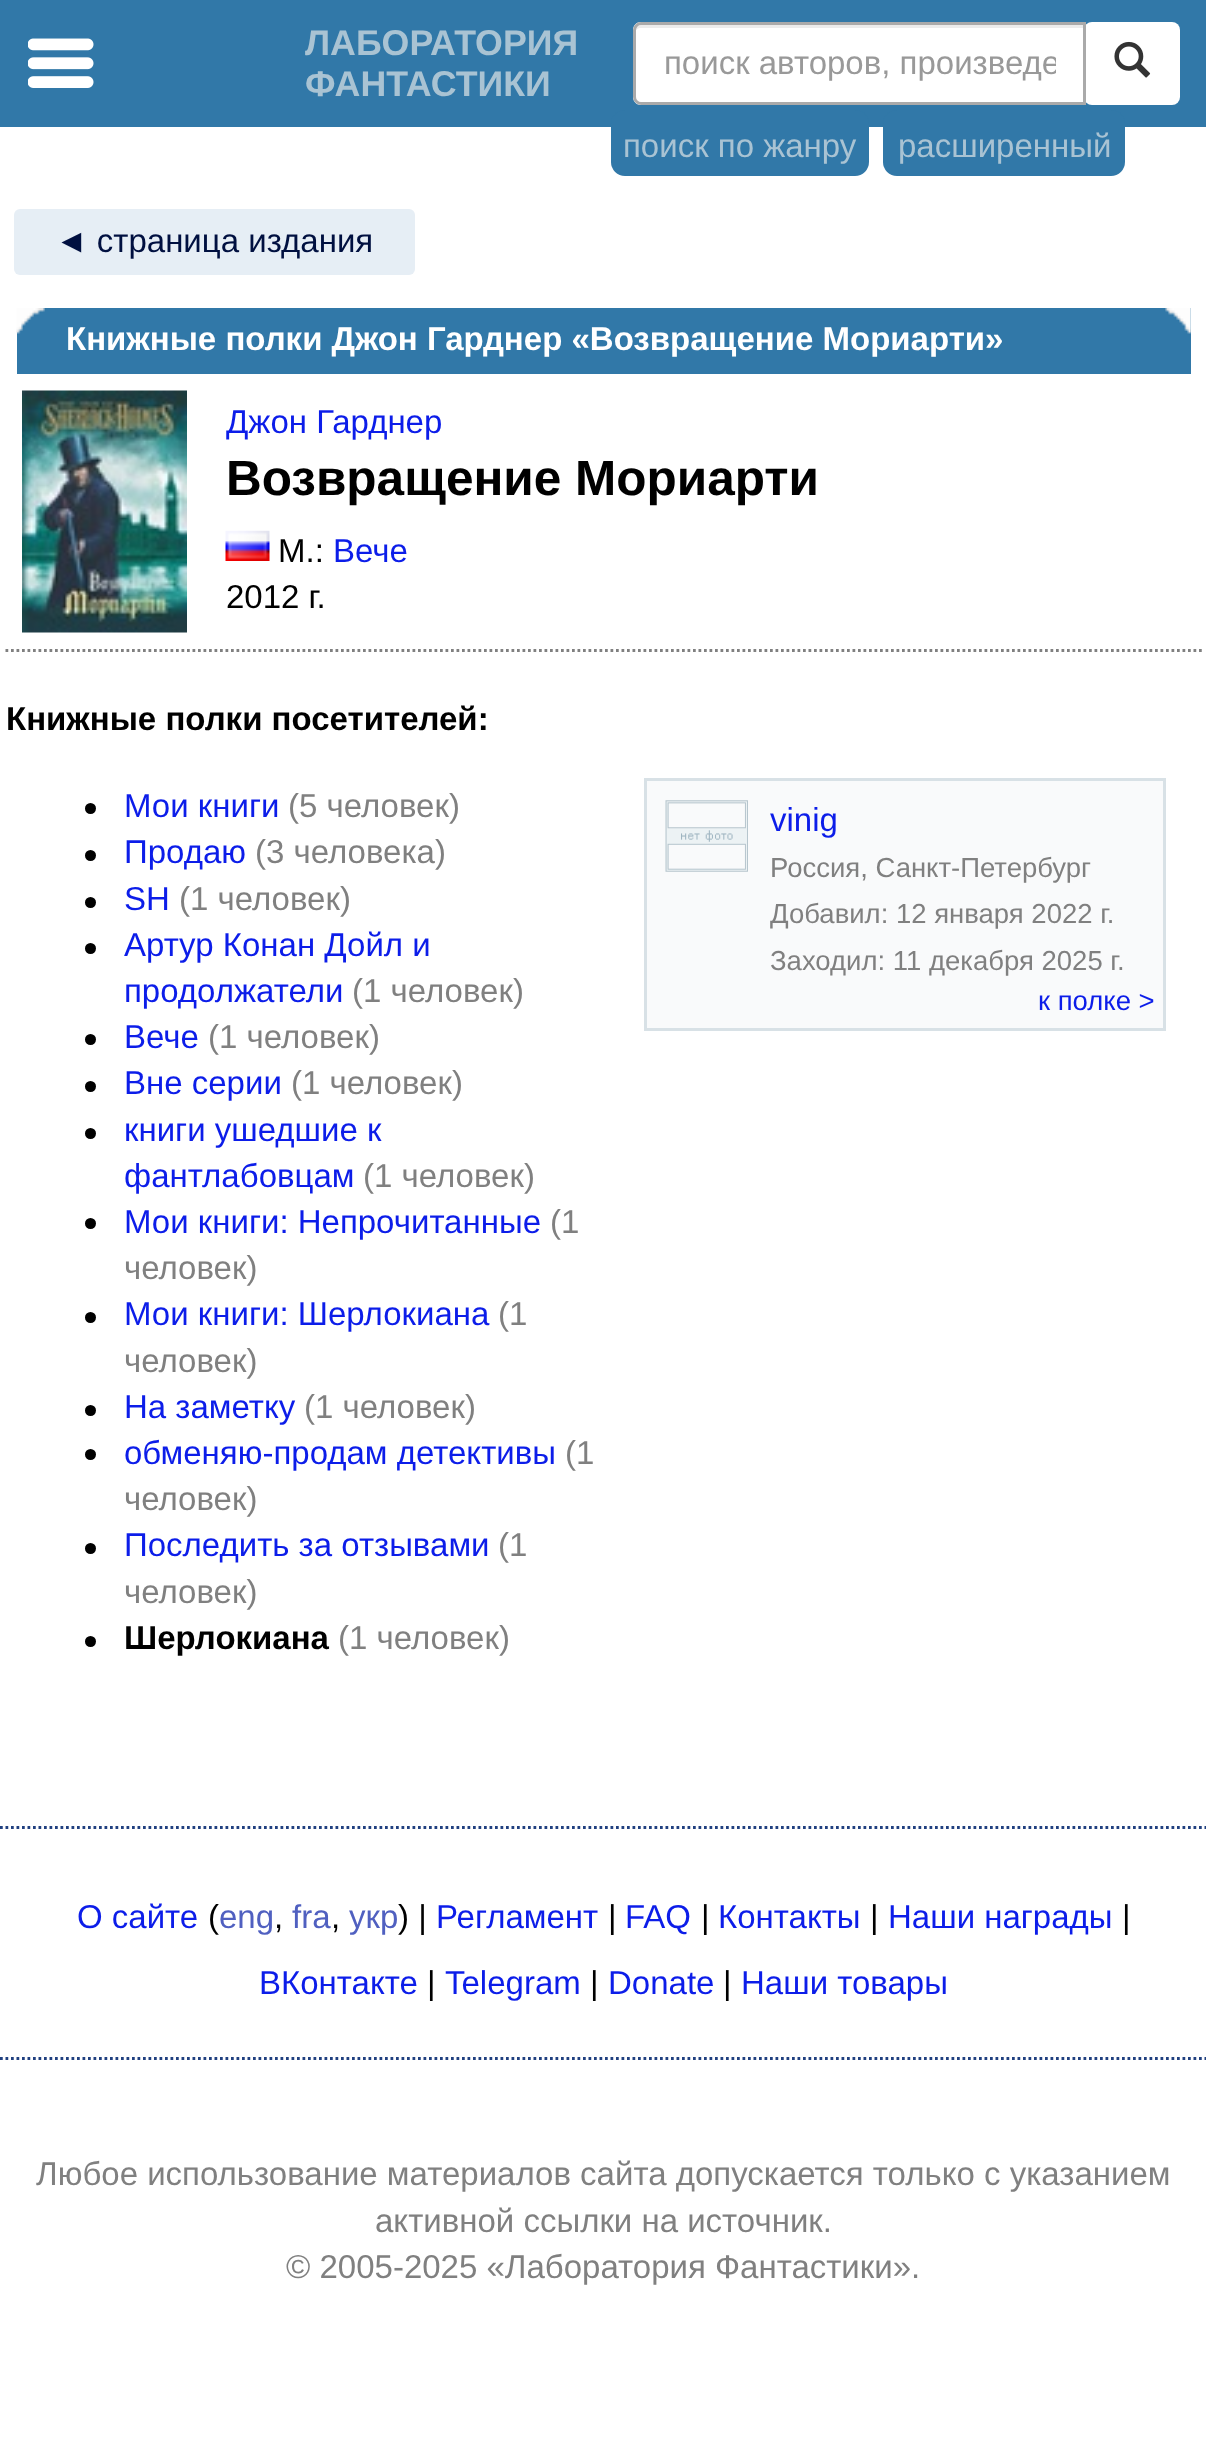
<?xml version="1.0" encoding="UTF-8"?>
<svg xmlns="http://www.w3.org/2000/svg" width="1206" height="2437">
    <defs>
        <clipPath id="clip1"><rect x="663" y="44" width="393" height="39"/></clipPath>
    </defs>
    <rect width="100%" height="100%" fill="#FFFFFF"/>
    <rect x="0" y="0" width="1206" height="127" fill="#3178A8"/>
    <image x="28" y="38" width="66" height="50" href="img_01.png"/>
    <text font-family="Liberation Sans" font-size="35.75" font-weight="700" fill="#A9C3D3">
        <tspan x="305" y="55">ЛАБОРАТОРИЯ</tspan>
        <tspan x="305" y="96">ФАНТАСТИКИ</tspan>
    </text>
    <rect x="1084" y="22" width="96" height="83" rx="8" fill="#FFFFFF"/>
    <path d="M 641 22 H 1086 V 105 H 641 C 636.5 105 633 101.5 633 97 V 30 C 633 25.5 636.5 22 641 22 Z" fill="#FFFFFF"/>
    <path d="M 641 28 H 1084 V 25 H 641 C 636 25 635 29 635 33 C 635 30 638 28 641 28 Z" fill="#ECECEC"/>
    <path d="M 641 23.5 H 1084.5 V 103.5 H 641 C 637.5 103.5 634.5 100.5 634.5 97 V 30 C 634.5 26.5 637.5 23.5 641 23.5 Z" fill="none" stroke="#AAAAAA" stroke-width="3"/>
    <g clip-path="url(#clip1)">
        <text x="664" y="74" font-family="Liberation Sans" font-size="33" fill="#999999">поиск авторов, произведе</text>
    </g>
    <image x="1114" y="41" width="37" height="37" href="img_02.png"/>
    <rect x="611" y="110" width="258" height="66" rx="14" fill="#3178A8"/>
    <text x="623" y="157" font-family="Liberation Sans" font-size="33" fill="#A9C3D3">поиск по жанру</text>
    <rect x="883" y="110" width="242" height="66" rx="14" fill="#3178A8"/>
    <text x="898" y="157" font-family="Liberation Sans" font-size="33" fill="#A9C3D3">расширенный</text>
    <rect x="14" y="209" width="401" height="66" rx="6" fill="#E6EEF5"/>
    <text x="55" y="252" font-family="Liberation Sans" font-size="33" fill="#001040">◄ страница издания</text>
    <rect x="17" y="308" width="1174" height="66" fill="#3178A8"/>
    <image x="16" y="308" width="29" height="26" href="img_03.png"/>
    <image x="1165" y="308" width="26" height="26" href="img_04.png"/>
    <text x="66" y="350" font-family="Liberation Sans" font-size="33" font-weight="700" fill="#FFFFFF">Книжные полки Джон Гарднер «Возвращение Мориарти»</text>
    <path d="M 5.5 650.5 H 1202" fill="none" stroke="#808080" stroke-width="2.8" stroke-dasharray="2.75 2.75"/>
    <image x="22" y="390" width="165" height="243" href="img_05.png"/>
    <text x="226" y="433" font-family="Liberation Sans" font-size="33" fill="#0C1DE9">Джон Гарднер</text>
    <text x="226" y="495" font-family="Liberation Sans" font-size="49.5" font-weight="700" fill="#000000">Возвращение Мориарти</text>
    <image x="225" y="530" width="45" height="31" href="img_06.png"/>
    <text x="278" y="562" font-family="Liberation Sans" font-size="33" fill="#000000">М.:</text>
    <text x="333" y="562" font-family="Liberation Sans" font-size="33" fill="#0C1DE9">Вече</text>
    <text x="226" y="608" font-family="Liberation Sans" font-size="33" fill="#000000">2012 г.</text>
    <text x="6" y="730" font-family="Liberation Sans" font-size="33" font-weight="700" fill="#000000">Книжные полки посетителей:</text>
    <circle cx="90.5" cy="808.5" r="5.5" fill="#000000"/>
    <text x="124" y="817" font-family="Liberation Sans" font-size="33" fill="#0C1DE9">Мои книги</text>
    <text x="288" y="817" font-family="Liberation Sans" font-size="33" fill="#808080">(5 человек)</text>
    <circle cx="90.5" cy="855.5" r="5.5" fill="#000000"/>
    <text x="124" y="863" font-family="Liberation Sans" font-size="33" fill="#0C1DE9">Продаю</text>
    <text x="255" y="863" font-family="Liberation Sans" font-size="33" fill="#808080">(3 человека)</text>
    <circle cx="90.5" cy="902.5" r="5.5" fill="#000000"/>
    <text x="124" y="910" font-family="Liberation Sans" font-size="33" fill="#0C1DE9">SH</text>
    <text x="179" y="910" font-family="Liberation Sans" font-size="33" fill="#808080">(1 человек)</text>
    <circle cx="90.5" cy="948.5" r="5.5" fill="#000000"/>
    <text font-family="Liberation Sans" font-size="33" fill="#0C1DE9">
        <tspan x="124" y="956">Артур Конан Дойл и</tspan>
        <tspan x="124" y="1002">продолжатели</tspan>
    </text>
    <text x="352" y="1002" font-family="Liberation Sans" font-size="33" fill="#808080">(1 человек)</text>
    <circle cx="90.5" cy="1039.5" r="5.5" fill="#000000"/>
    <text x="124" y="1048" font-family="Liberation Sans" font-size="33" fill="#0C1DE9">Вече</text>
    <text x="208" y="1048" font-family="Liberation Sans" font-size="33" fill="#808080">(1 человек)</text>
    <circle cx="90.5" cy="1086.5" r="5.5" fill="#000000"/>
    <text x="124" y="1094" font-family="Liberation Sans" font-size="33" fill="#0C1DE9">Вне серии</text>
    <text x="291" y="1094" font-family="Liberation Sans" font-size="33" fill="#808080">(1 человек)</text>
    <circle cx="90.5" cy="1133.5" r="5.5" fill="#000000"/>
    <text font-family="Liberation Sans" font-size="33" fill="#0C1DE9">
        <tspan x="124" y="1141">книги ушедшие к</tspan>
        <tspan x="124" y="1187">фантлабовцам</tspan>
    </text>
    <text x="363" y="1187" font-family="Liberation Sans" font-size="33" fill="#808080">(1 человек)</text>
    <circle cx="90.5" cy="1223.5" r="5.5" fill="#000000"/>
    <text x="124" y="1233" font-family="Liberation Sans" font-size="33" fill="#0C1DE9">Мои книги: Непрочитанные</text>
    <text x="550" y="1233" font-family="Liberation Sans" font-size="33" fill="#808080">(1</text>
    <text x="124" y="1279" font-family="Liberation Sans" font-size="33" fill="#808080">человек)</text>
    <circle cx="90.5" cy="1317.5" r="5.5" fill="#000000"/>
    <text x="124" y="1325" font-family="Liberation Sans" font-size="33" fill="#0C1DE9">Мои книги: Шерлокиана</text>
    <text x="498" y="1325" font-family="Liberation Sans" font-size="33" fill="#808080">(1</text>
    <text x="124" y="1372" font-family="Liberation Sans" font-size="33" fill="#808080">человек)</text>
    <circle cx="90.5" cy="1410.5" r="5.5" fill="#000000"/>
    <text x="124" y="1418" font-family="Liberation Sans" font-size="33" fill="#0C1DE9">На заметку</text>
    <text x="304" y="1418" font-family="Liberation Sans" font-size="33" fill="#808080">(1 человек)</text>
    <circle cx="90.5" cy="1454.5" r="5.5" fill="#000000"/>
    <text x="124" y="1464" font-family="Liberation Sans" font-size="33" fill="#0C1DE9">обменяю-продам детективы</text>
    <text x="565" y="1464" font-family="Liberation Sans" font-size="33" fill="#808080">(1</text>
    <text x="124" y="1510" font-family="Liberation Sans" font-size="33" fill="#808080">человек)</text>
    <circle cx="90.5" cy="1548.5" r="5.5" fill="#000000"/>
    <text x="124" y="1556" font-family="Liberation Sans" font-size="33" fill="#0C1DE9">Последить за отзывами</text>
    <text x="498" y="1556" font-family="Liberation Sans" font-size="33" fill="#808080">(1</text>
    <text x="124" y="1603" font-family="Liberation Sans" font-size="33" fill="#808080">человек)</text>
    <circle cx="90.5" cy="1641.5" r="5.5" fill="#000000"/>
    <text x="124" y="1649" font-family="Liberation Sans" font-size="33" font-weight="700" fill="#000000">Шерлокиана</text>
    <text x="338" y="1649" font-family="Liberation Sans" font-size="33" fill="#808080">(1 человек)</text>
    <rect x="645.5" y="779.5" width="519" height="250" fill="#F9FAFB" stroke="#D8E1E6" stroke-width="3"/>
    <image x="665" y="800" width="83" height="72" href="img_07.png"/>
    <text x="770" y="831" font-family="Liberation Sans" font-size="33" fill="#0C1DE9">vinig</text>
    <text font-family="Liberation Sans" font-size="27.5" fill="#808080">
        <tspan x="770" y="877">Россия, Санкт-Петербург</tspan>
        <tspan x="770" y="923">Добавил: 12 января 2022 г.</tspan>
        <tspan x="770" y="970">Заходил: 11 декабря 2025 г.</tspan>
    </text>
    <text x="1038" y="1010" font-family="Liberation Sans" font-size="27.5" fill="#0C1DE9">к полке &gt;</text>
    <path d="M 0 1827.5 H 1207" fill="none" stroke="#204080" stroke-width="2.8" stroke-dasharray="2.75 2.75"/>
    <path d="M 0 2058.5 H 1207" fill="none" stroke="#204080" stroke-width="2.8" stroke-dasharray="2.75 2.75"/>
    <text x="77" y="1928" font-family="Liberation Sans" font-size="33" fill="#0C1DE9">О сайте</text>
    <text x="208" y="1928" font-family="Liberation Sans" font-size="33" fill="#000000">(</text>
    <text x="219" y="1928" font-family="Liberation Sans" font-size="33" fill="#5060C0">eng</text>
    <text x="274" y="1928" font-family="Liberation Sans" font-size="33" fill="#000000">,</text>
    <text x="292" y="1928" font-family="Liberation Sans" font-size="33" fill="#5060C0">fra</text>
    <text x="331" y="1928" font-family="Liberation Sans" font-size="33" fill="#000000">,</text>
    <text x="349" y="1928" font-family="Liberation Sans" font-size="33" fill="#5060C0">укр</text>
    <text x="398" y="1928" font-family="Liberation Sans" font-size="33" fill="#000000">) |</text>
    <text x="436" y="1928" font-family="Liberation Sans" font-size="33" fill="#0C1DE9">Регламент</text>
    <text x="608" y="1928" font-family="Liberation Sans" font-size="33" fill="#000000">|</text>
    <text x="625" y="1928" font-family="Liberation Sans" font-size="33" fill="#0C1DE9">FAQ</text>
    <text x="701" y="1928" font-family="Liberation Sans" font-size="33" fill="#000000">|</text>
    <text x="718" y="1928" font-family="Liberation Sans" font-size="33" fill="#0C1DE9">Контакты</text>
    <text x="870" y="1928" font-family="Liberation Sans" font-size="33" fill="#000000">|</text>
    <text x="888" y="1928" font-family="Liberation Sans" font-size="33" fill="#0C1DE9">Наши награды</text>
    <text x="1122" y="1928" font-family="Liberation Sans" font-size="33" fill="#000000">|</text>
    <text x="259" y="1994" font-family="Liberation Sans" font-size="33" fill="#0C1DE9">ВКонтакте</text>
    <text x="427" y="1994" font-family="Liberation Sans" font-size="33" fill="#000000">|</text>
    <text x="445" y="1994" font-family="Liberation Sans" font-size="33" fill="#0C1DE9">Telegram</text>
    <text x="590" y="1994" font-family="Liberation Sans" font-size="33" fill="#000000">|</text>
    <text x="608" y="1994" font-family="Liberation Sans" font-size="33" fill="#0C1DE9">Donate</text>
    <text x="723" y="1994" font-family="Liberation Sans" font-size="33" fill="#000000">|</text>
    <text x="741" y="1994" font-family="Liberation Sans" font-size="33" fill="#0C1DE9">Наши товары</text>
    <text x="36" y="2185" font-family="Liberation Sans" font-size="33" fill="#808080">Любое использование материалов сайта допускается только с указанием</text>
    <text x="375" y="2232" font-family="Liberation Sans" font-size="33" fill="#808080">активной ссылки на источник.</text>
    <text x="286" y="2278" font-family="Liberation Sans" font-size="33" fill="#808080">© 2005-2025 «Лаборатория Фантастики».</text>
</svg>
